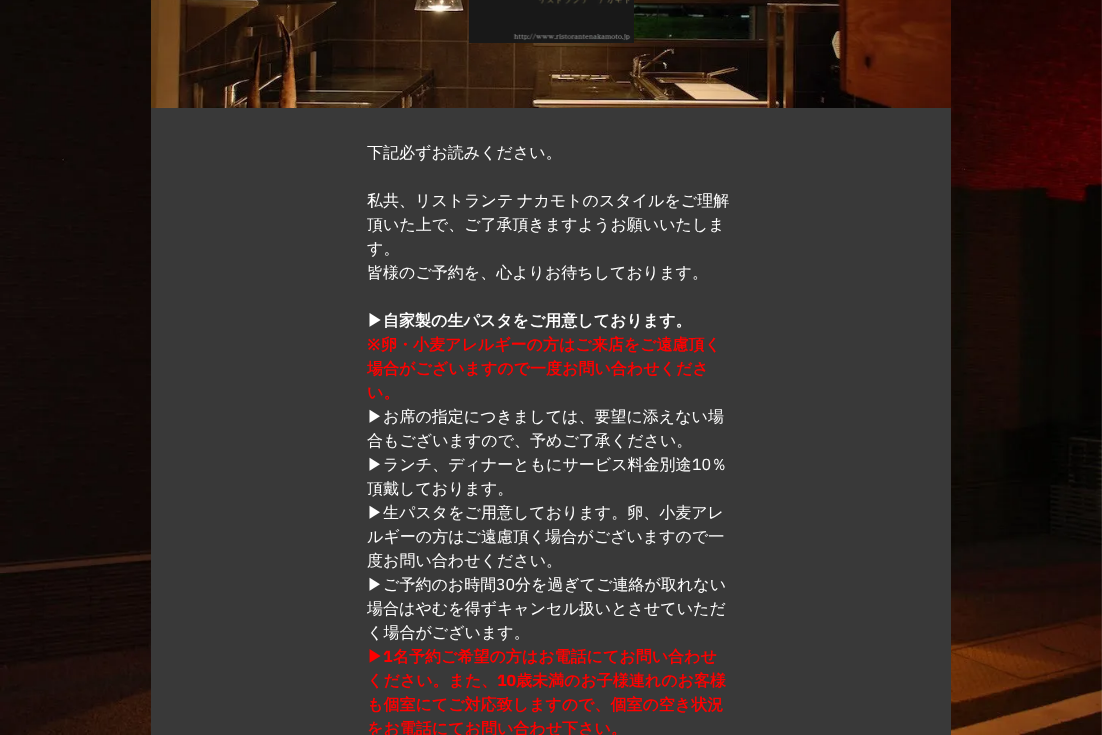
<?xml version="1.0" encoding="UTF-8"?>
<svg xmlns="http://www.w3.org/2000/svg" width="1102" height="735">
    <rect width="100%" height="100%" fill="#FFFFFF"/>
    <image x="0" y="0" width="1102" height="735" href="img_01.png"/>
    <rect x="151" y="108" width="800" height="627" fill="#393939"/>
    <image x="151" y="0" width="800" height="108" href="img_02.png"/>
    <image x="469" y="0" width="165" height="43" href="img_03.png"/>
    <text x="367" y="158" font-family="WenQuanYi Zen Hei" font-size="16" font-weight="500" fill="#FFFFFF">下記必ずお読みください。</text>
    <text font-family="WenQuanYi Zen Hei" font-size="16" font-weight="500" fill="#FFFFFF">
        <tspan x="367" y="206" word-spacing="-1">私共、リストランテ ナカモトのスタイルをご理解</tspan>
        <tspan x="367" y="230">頂いた上で、ご了承頂きますようお願いいたしま</tspan>
        <tspan x="367" y="254">す。</tspan>
        <tspan x="367" y="278">皆様のご予約を、心よりお待ちしております。</tspan>
    </text>
    <text x="367" y="326" font-family="WenQuanYi Zen Hei" font-size="16" font-weight="700" fill="#FFFFFF">▶自家製の生パスタをご用意しております。</text>
    <text x="367" y="350" font-family="Noto Sans" font-size="16" font-weight="700" fill="#FF0000">※</text>
    <text x="381" y="350" font-family="WenQuanYi Zen Hei" font-size="16" font-weight="700" fill="#FF0000">卵・小麦アレルギーの方はご来店をご遠慮頂く</text>
    <text font-family="WenQuanYi Zen Hei" font-size="16" font-weight="700" fill="#FF0000">
        <tspan x="367" y="374">場合がございますので一度お問い合わせくださ</tspan>
        <tspan x="367" y="398">い。</tspan>
    </text>
    <text font-family="WenQuanYi Zen Hei" font-size="16" font-weight="500" fill="#FFFFFF">
        <tspan x="367" y="422">▶お席の指定につきましては、要望に添えない場</tspan>
        <tspan x="367" y="446">合もございますので、予めご了承ください。</tspan>
        <tspan x="367" y="470">▶ランチ、ディナーともにサービス料金別途</tspan>
    </text>
    <text x="692" y="470" font-family="IBM Plex Sans" font-size="16" fill="#FFFFFF">10</text>
    <text x="711" y="470" font-family="WenQuanYi Zen Hei" font-size="16" font-weight="500" fill="#FFFFFF">％</text>
    <text font-family="WenQuanYi Zen Hei" font-size="16" font-weight="500" fill="#FFFFFF">
        <tspan x="367" y="494">頂戴しております。</tspan>
        <tspan x="367" y="518">▶生パスタをご用意しております。卵、小麦アレ</tspan>
        <tspan x="367" y="542">ルギーの方はご遠慮頂く場合がございますので一</tspan>
        <tspan x="367" y="566">度お問い合わせください。</tspan>
        <tspan x="367" y="590">▶ご予約のお時間</tspan>
    </text>
    <text x="496" y="590" font-family="IBM Plex Sans" font-size="16" fill="#FFFFFF">30</text>
    <text x="515" y="590" font-family="WenQuanYi Zen Hei" font-size="16" font-weight="500" fill="#FFFFFF">分を過ぎてご連絡が取れない</text>
    <text font-family="WenQuanYi Zen Hei" font-size="16" font-weight="500" fill="#FFFFFF">
        <tspan x="367" y="614">場合はやむを得ずキャンセル扱いとさせていただ</tspan>
        <tspan x="367" y="638">く場合がございます。</tspan>
    </text>
    <text x="367" y="662" font-family="WenQuanYi Zen Hei" font-size="16" font-weight="700" fill="#FF0000">▶</text>
    <text x="383" y="662" font-family="IBM Plex Sans" font-size="16" font-weight="700" fill="#FF0000">1</text>
    <text x="393" y="662" font-family="WenQuanYi Zen Hei" font-size="16" font-weight="700" fill="#FF0000">名予約ご希望の方はお電話にてお問い合わせ</text>
    <text x="367" y="686" font-family="WenQuanYi Zen Hei" font-size="16" font-weight="700" fill="#FF0000">ください。また、</text>
    <text x="497" y="686" font-family="IBM Plex Sans" font-size="16" font-weight="700" fill="#FF0000">10</text>
    <text x="516" y="686" font-family="WenQuanYi Zen Hei" font-size="16" font-weight="700" fill="#FF0000">歳未満のお子様連れのお客様</text>
    <text font-family="WenQuanYi Zen Hei" font-size="16" font-weight="700" fill="#FF0000">
        <tspan x="367" y="710">も個室にてご対応致しますので、個室の空き状況</tspan>
        <tspan x="367" y="734">をお電話にてお問い合わせ下さい。</tspan>
    </text>
</svg>
